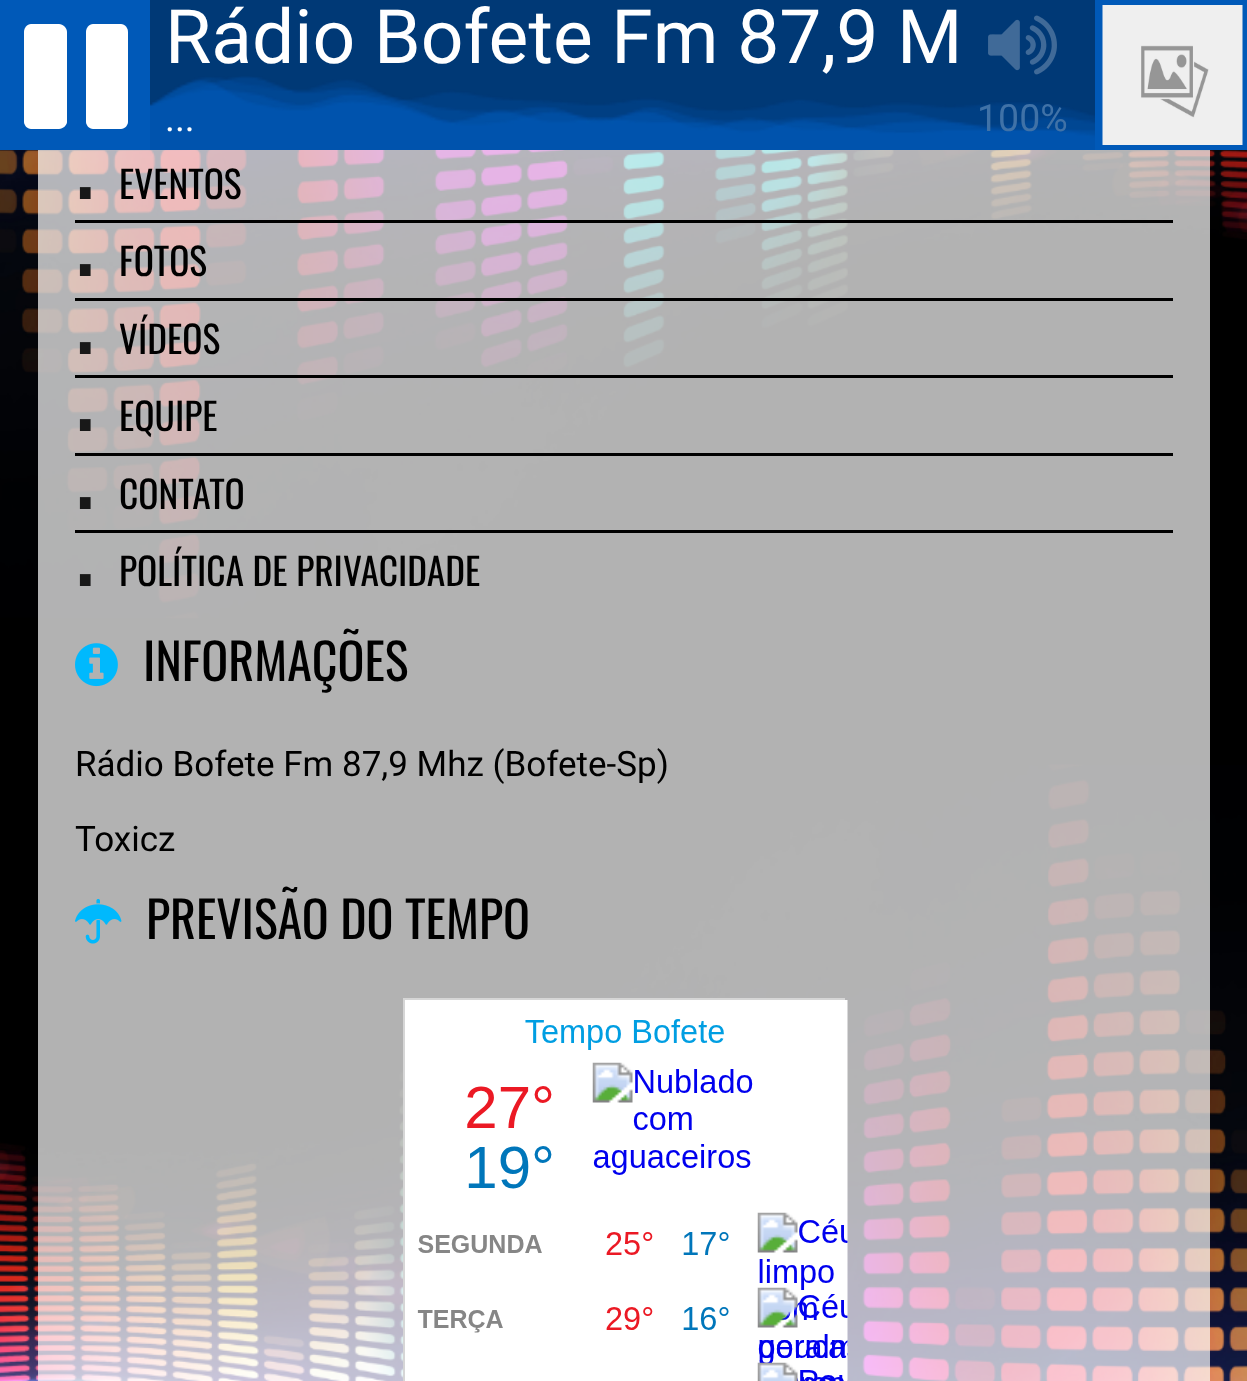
<?xml version="1.0" encoding="UTF-8"?>
<svg xmlns="http://www.w3.org/2000/svg" width="1247" height="1381">
    <rect width="100%" height="100%" fill="#FFFFFF"/>
    <rect x="0" y="0" width="150" height="150" fill="#0059B8"/>
    <path d="M 59 129 H 31 C 27 129 24 125 24 122 V 32 C 24 28 27 24 31 24 H 59 C 63 24 67 28 67 32 V 122 C 67 125 63 129 59 129 Z" fill="#FFFFFF"/>
    <path d="M 121 129 H 93 C 89 129 86 125 86 122 V 32 C 86 28 89 24 93 24 H 121 C 125 24 128 28 128 32 V 122 C 128 125 125 129 121 129 Z" fill="#FFFFFF"/>
    <rect x="150" y="0" width="945" height="150" fill="#003976"/>
    <rect x="1095" y="0" width="152" height="150" fill="#0059B8"/>
    <image x="1102" y="5" width="141" height="140" href="img_01.png"/>
    <text x="165" y="63" font-family="Roboto" font-size="75" fill="#FFFFFF">Rádio Bofete Fm 87,9 M</text>
    <image x="150" y="76" width="945" height="74" href="img_02.png"/>
    <text x="165" y="131" font-family="Roboto" font-size="37.5" fill="#FFFFFF">...</text>
    <image x="988" y="15" width="69" height="60" href="img_03.png"/>
    <text x="977" y="131" font-family="Roboto" font-size="37.5" fill="#4072A7">100%</text>
    <image x="0" y="150" width="1247" height="1231" href="img_04.png"/>
    <rect x="75" y="220" width="1098" height="3" fill="#000000"/>
    <text x="75" y="199" font-family="Oswald" font-size="100" fill="#181818">.</text>
    <text x="119" y="199" font-family="Oswald" font-size="37.5" fill="#000000">EVENTOS</text>
    <rect x="75" y="298" width="1098" height="3" fill="#000000"/>
    <text x="75" y="276" font-family="Oswald" font-size="100" fill="#181818">.</text>
    <text x="119" y="276" font-family="Oswald" font-size="37.5" fill="#000000">FOTOS</text>
    <rect x="75" y="375" width="1098" height="3" fill="#000000"/>
    <text x="75" y="354" font-family="Oswald" font-size="100" fill="#181818">.</text>
    <text x="119" y="354" font-family="Oswald" font-size="37.5" fill="#000000">VÍDEOS</text>
    <rect x="75" y="453" width="1098" height="3" fill="#000000"/>
    <text x="75" y="431" font-family="Oswald" font-size="100" fill="#181818">.</text>
    <text x="119" y="431" font-family="Oswald" font-size="37.5" fill="#000000">EQUIPE</text>
    <rect x="75" y="530" width="1098" height="3" fill="#000000"/>
    <text x="75" y="509" font-family="Oswald" font-size="100" fill="#181818">.</text>
    <text x="119" y="509" font-family="Oswald" font-size="37.5" fill="#000000">CONTATO</text>
    <text x="75" y="586" font-family="Oswald" font-size="100" fill="#181818">.</text>
    <text x="119" y="586" font-family="Oswald" font-size="37.5" fill="#000000">POLÍTICA DE PRIVACIDADE</text>
    <image x="75" y="643" width="43" height="44" href="img_05.png"/>
    <text x="143" y="681" font-family="Oswald" font-size="50" fill="#000000">INFORMAÇÕES</text>
    <text x="75" y="776" font-family="Roboto" font-size="35" fill="#000000">Rádio Bofete Fm 87,9 Mhz (Bofete-Sp)</text>
    <text x="75" y="851" font-family="Roboto" font-size="35" fill="#000000">Toxicz</text>
    <image x="75" y="898" width="47" height="46" href="img_06.png"/>
    <text x="146" y="939" font-family="Oswald" font-size="50" fill="#000000">PREVISÃO DO TEMPO</text>
    <rect x="404.5" y="999.5" width="439" height="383" fill="none" stroke="#D6D6D6" stroke-width="3"/>
    <image x="405" y="1000" width="443" height="381" href="img_07.png"/>
</svg>
